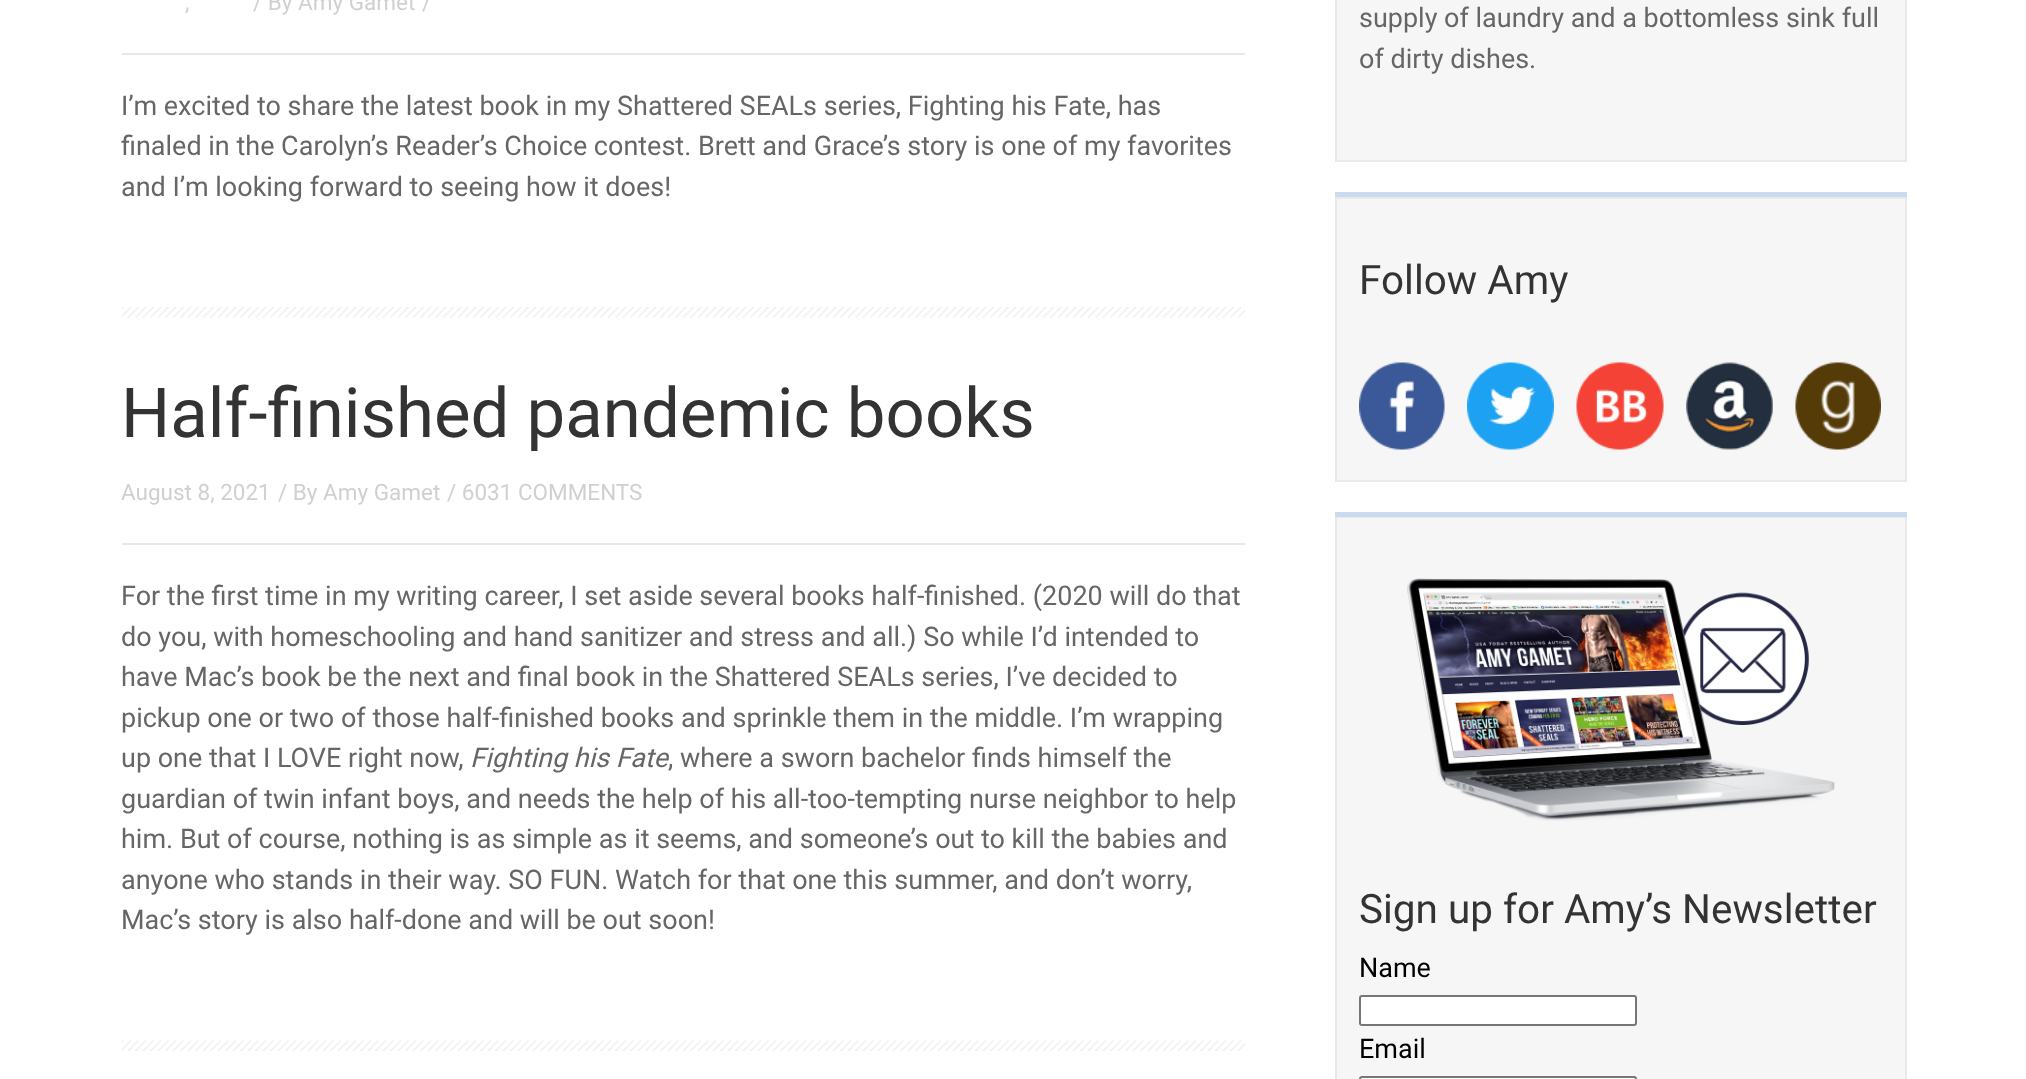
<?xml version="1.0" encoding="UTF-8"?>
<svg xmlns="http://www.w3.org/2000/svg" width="2026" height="1079">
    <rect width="100%" height="100%" fill="#FFFFFF"/>
    <image x="121" y="307" width="1124" height="11" href="img_01.png"/>
    <rect x="122" y="53" width="1123" height="2" fill="#E8E8E8"/>
    <text x="185" y="10" font-family="Roboto" font-size="22.5" fill="#D1D0D0">,</text>
    <text x="253" y="10" font-family="Roboto" font-size="22.5" fill="#D1D0D0">/ By Amy Gamet</text>
    <text x="422" y="10" font-family="Roboto" font-size="22.5" fill="#D1D0D0">/</text>
    <text font-family="Roboto" font-size="27" fill="#666666">
        <tspan x="121" y="115">I’m excited to share the latest book in my Shattered SEALs series, Fighting his Fate, has</tspan>
        <tspan x="121" y="155">finaled in the Carolyn’s Reader’s Choice contest. Brett and Grace’s story is one of my favorites</tspan>
        <tspan x="121" y="196">and I’m looking forward to seeing how it does!</tspan>
    </text>
    <image x="121" y="1040" width="1124" height="11" href="img_02.png"/>
    <text x="121" y="437" font-family="Roboto" font-size="69" fill="#333333">Half-finished pandemic books</text>
    <rect x="122" y="543" width="1123" height="2" fill="#E8E8E8"/>
    <text x="121" y="500" font-family="Roboto" font-size="22.5" fill="#D1D0D0">August 8, 2021</text>
    <text x="278" y="500" font-family="Roboto" font-size="22.5" fill="#D1D0D0">/ By Amy Gamet</text>
    <text x="447" y="500" font-family="Roboto" font-size="22.5" fill="#D1D0D0">/ 6031 COMMENTS</text>
    <text font-family="Roboto" font-size="27" fill="#666666">
        <tspan x="121" y="605">For the first time in my writing career, I set aside several books half-finished. (2020 will do that</tspan>
        <tspan x="121" y="646">do you, with homeschooling and hand sanitizer and stress and all.) So while I’d intended to</tspan>
        <tspan x="121" y="686">have Mac’s book be the next and final book in the Shattered SEALs series, I’ve decided to</tspan>
        <tspan x="121" y="727">pickup one or two of those half-finished books and sprinkle them in the middle. I’m wrapping</tspan>
        <tspan x="121" y="767">up one that I LOVE right now,</tspan>
    </text>
    <text x="470" y="767" font-family="Roboto" font-size="27" font-style="italic" fill="#666666">Fighting his Fate</text>
    <text x="668" y="767" font-family="Roboto" font-size="27" fill="#666666">, where a sworn bachelor finds himself the</text>
    <text font-family="Roboto" font-size="27" fill="#666666">
        <tspan x="121" y="808">guardian of twin infant boys, and needs the help of his all-too-tempting nurse neighbor to help</tspan>
        <tspan x="121" y="848">him. But of course, nothing is as simple as it seems, and someone’s out to kill the babies and</tspan>
        <tspan x="121" y="889">anyone who stands in their way. SO FUN. Watch for that one this summer, and don’t worry,</tspan>
        <tspan x="121" y="929">Mac’s story is also half-done and will be out soon!</tspan>
    </text>
    <rect x="1336" y="-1" width="570" height="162" fill="#F6F6F6" stroke="#E9E9E9" stroke-width="2"/>
    <text font-family="Roboto" font-size="27" fill="#666666">
        <tspan x="1359" y="27">supply of laundry and a bottomless sink full</tspan>
        <tspan x="1359" y="68">of dirty dishes.</tspan>
    </text>
    <rect x="1336" y="198" width="570" height="283" fill="#F6F6F6" stroke="#E9E9E9" stroke-width="2"/>
    <rect x="1335" y="192" width="572" height="5" fill="#C9DBEF"/>
    <text x="1359" y="294" font-family="Roboto" font-size="40.5" fill="#333333">Follow Amy</text>
    <image x="1359" y="362" width="86" height="88" href="img_03.png"/>
    <image x="1467" y="362" width="87" height="88" href="img_04.png"/>
    <image x="1576" y="362" width="88" height="88" href="img_05.png"/>
    <image x="1686" y="362" width="87" height="88" href="img_06.png"/>
    <image x="1795" y="362" width="86" height="88" href="img_07.png"/>
    <rect x="1336" y="517" width="570" height="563" fill="#F6F6F6" stroke="#E9E9E9" stroke-width="2"/>
    <rect x="1335" y="512" width="572" height="5" fill="#C9DBEF"/>
    <image x="1407" y="578" width="428" height="243" href="img_08.png"/>
    <text x="1359" y="923" font-family="Roboto" font-size="40.5" fill="#333333">Sign up for Amy’s Newsletter</text>
    <text x="1359" y="977" font-family="Roboto" font-size="27" fill="#000000">Name</text>
    <rect x="1360" y="996" width="276" height="29" rx="2" fill="#FFFFFF" stroke="#767676" stroke-width="2"/>
    <text x="1359" y="1058" font-family="Roboto" font-size="27" fill="#000000">Email</text>
    <rect x="1360" y="1077" width="276" height="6" rx="2" fill="#FFFFFF" stroke="#767676" stroke-width="2"/>
</svg>
